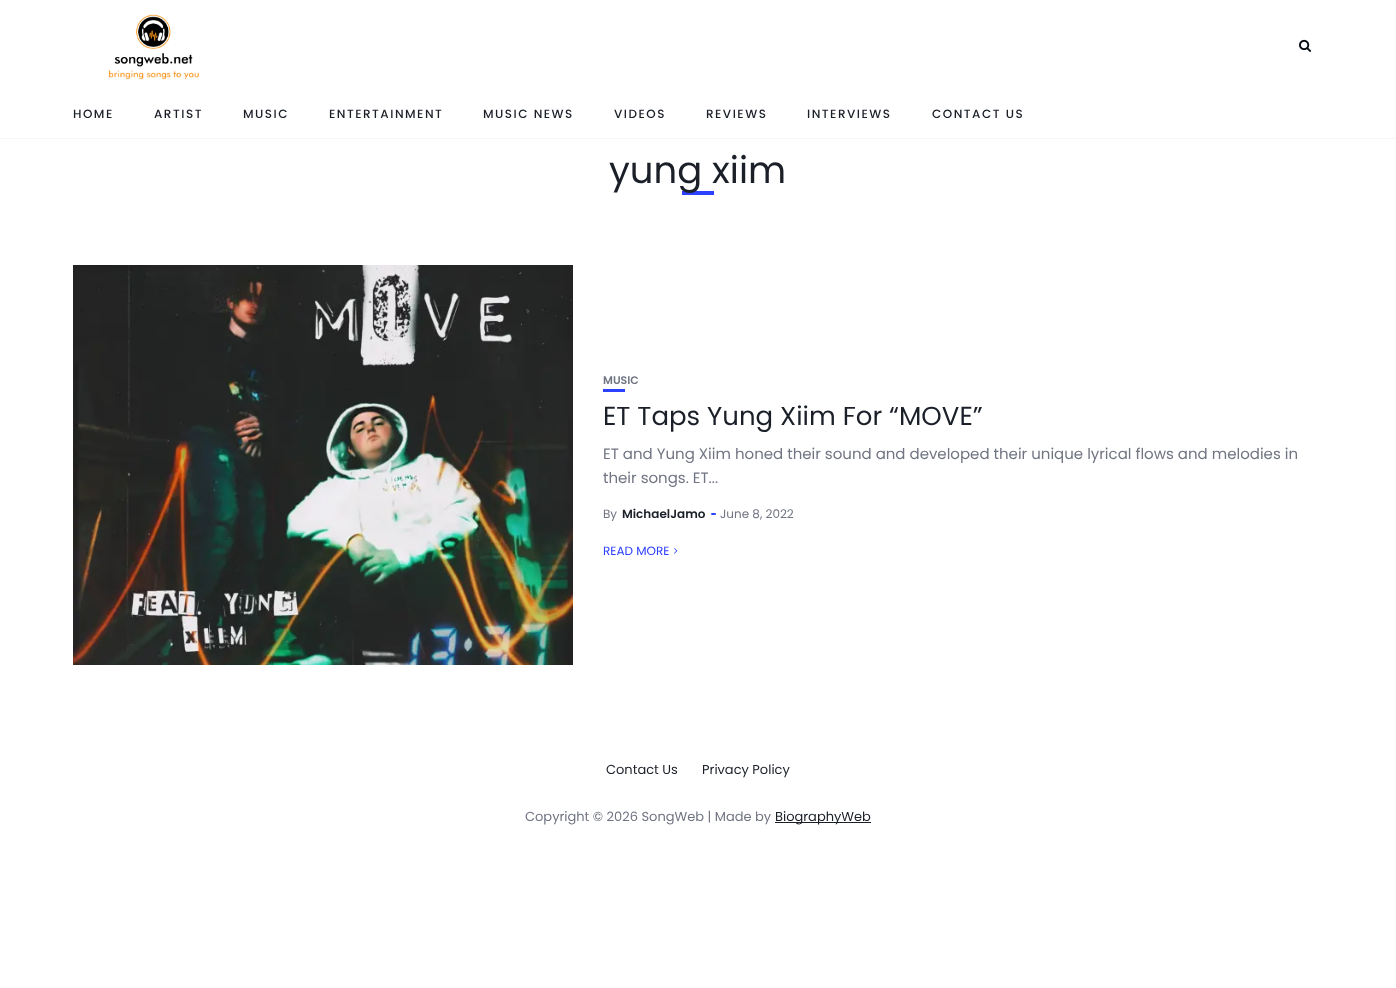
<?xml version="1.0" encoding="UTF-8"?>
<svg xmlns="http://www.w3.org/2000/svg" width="1396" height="988">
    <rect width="100%" height="100%" fill="#FFFFFF"/>
    <image x="108" y="14" width="91" height="66" href="img_01.png"/>
    <image x="1299" y="39" width="12" height="13" href="img_02.png"/>
    <rect x="0" y="138" width="1396" height="1" fill="#F4F6FA"/>
    <text x="73" y="118" font-family="Poppins" font-size="12" font-weight="500" letter-spacing="1.5" fill="#1A1F28">HOME</text>
    <text x="154" y="118" font-family="Poppins" font-size="12" font-weight="500" letter-spacing="1.5" fill="#1A1F28">ARTIST</text>
    <text x="243" y="118" font-family="Poppins" font-size="12" font-weight="500" letter-spacing="1.5" fill="#1A1F28">MUSIC</text>
    <text x="329" y="118" font-family="Poppins" font-size="12" font-weight="500" letter-spacing="1.5" fill="#1A1F28">ENTERTAINMENT</text>
    <text x="483" y="118" font-family="Poppins" font-size="12" font-weight="500" letter-spacing="1.5" fill="#1A1F28">MUSIC NEWS</text>
    <text x="614" y="118" font-family="Poppins" font-size="12" font-weight="500" letter-spacing="1.5" fill="#1A1F28">VIDEOS</text>
    <text x="706" y="118" font-family="Poppins" font-size="12" font-weight="500" letter-spacing="1.5" fill="#1A1F28">REVIEWS</text>
    <text x="807" y="118" font-family="Poppins" font-size="12" font-weight="500" letter-spacing="1.5" fill="#1A1F28">INTERVIEWS</text>
    <text x="932" y="118" font-family="Poppins" font-size="12" font-weight="500" letter-spacing="1.5" fill="#1A1F28">CONTACT US</text>
    <rect x="682" y="191" width="32" height="4" fill="#2C40FF"/>
    <text x="609" y="183" font-family="Poppins" font-size="37" fill="#1A1F28">yung xiim</text>
    <image x="73" y="265" width="500" height="400" href="img_03.png"/>
    <text x="603" y="384" font-family="Poppins" font-size="11" font-weight="600" fill="#717582">MUSIC</text>
    <rect x="603" y="389" width="22" height="3" fill="#2C40FF"/>
    <text x="603" y="425" font-family="Poppins" font-size="26" fill="#1A1F28">ET Taps Yung Xiim For “MOVE”</text>
    <text font-family="Poppins" font-size="15" fill="#717582">
        <tspan x="603" y="459">ET and Yung Xiim honed their sound and developed their unique lyrical flows and melodies in</tspan>
        <tspan x="603" y="483">their songs. ET...</tspan>
    </text>
    <text x="603" y="518" font-family="Poppins" font-size="12" fill="#717582">By</text>
    <text x="622" y="518" font-family="Poppins" font-size="12" font-weight="600" fill="#1A1F28">MichaelJamo</text>
    <rect x="711" y="513" width="5" height="2" rx="1" fill="#2C40FF"/>
    <text x="720" y="518" font-family="Poppins" font-size="12" fill="#717582">June 8, 2022</text>
    <text x="603" y="555" font-family="Poppins" font-size="12" fill="#2C40FF">READ MORE</text>
    <image x="674" y="548" width="4" height="6" href="img_04.png"/>
    <text x="606" y="774" font-family="Poppins" font-size="13" fill="#1A1F28">Contact Us</text>
    <text x="702" y="774" font-family="Poppins" font-size="13" fill="#1A1F28">Privacy Policy</text>
    <text x="525" y="821" font-family="Poppins" font-size="13" fill="#717582">Copyright © 2026 SongWeb | Made by</text>
    <rect x="775" y="822" width="96" height="1" fill="#1A1F28"/>
    <text x="775" y="821" font-family="Poppins" font-size="13" fill="#1A1F28">BiographyWeb</text>
</svg>
